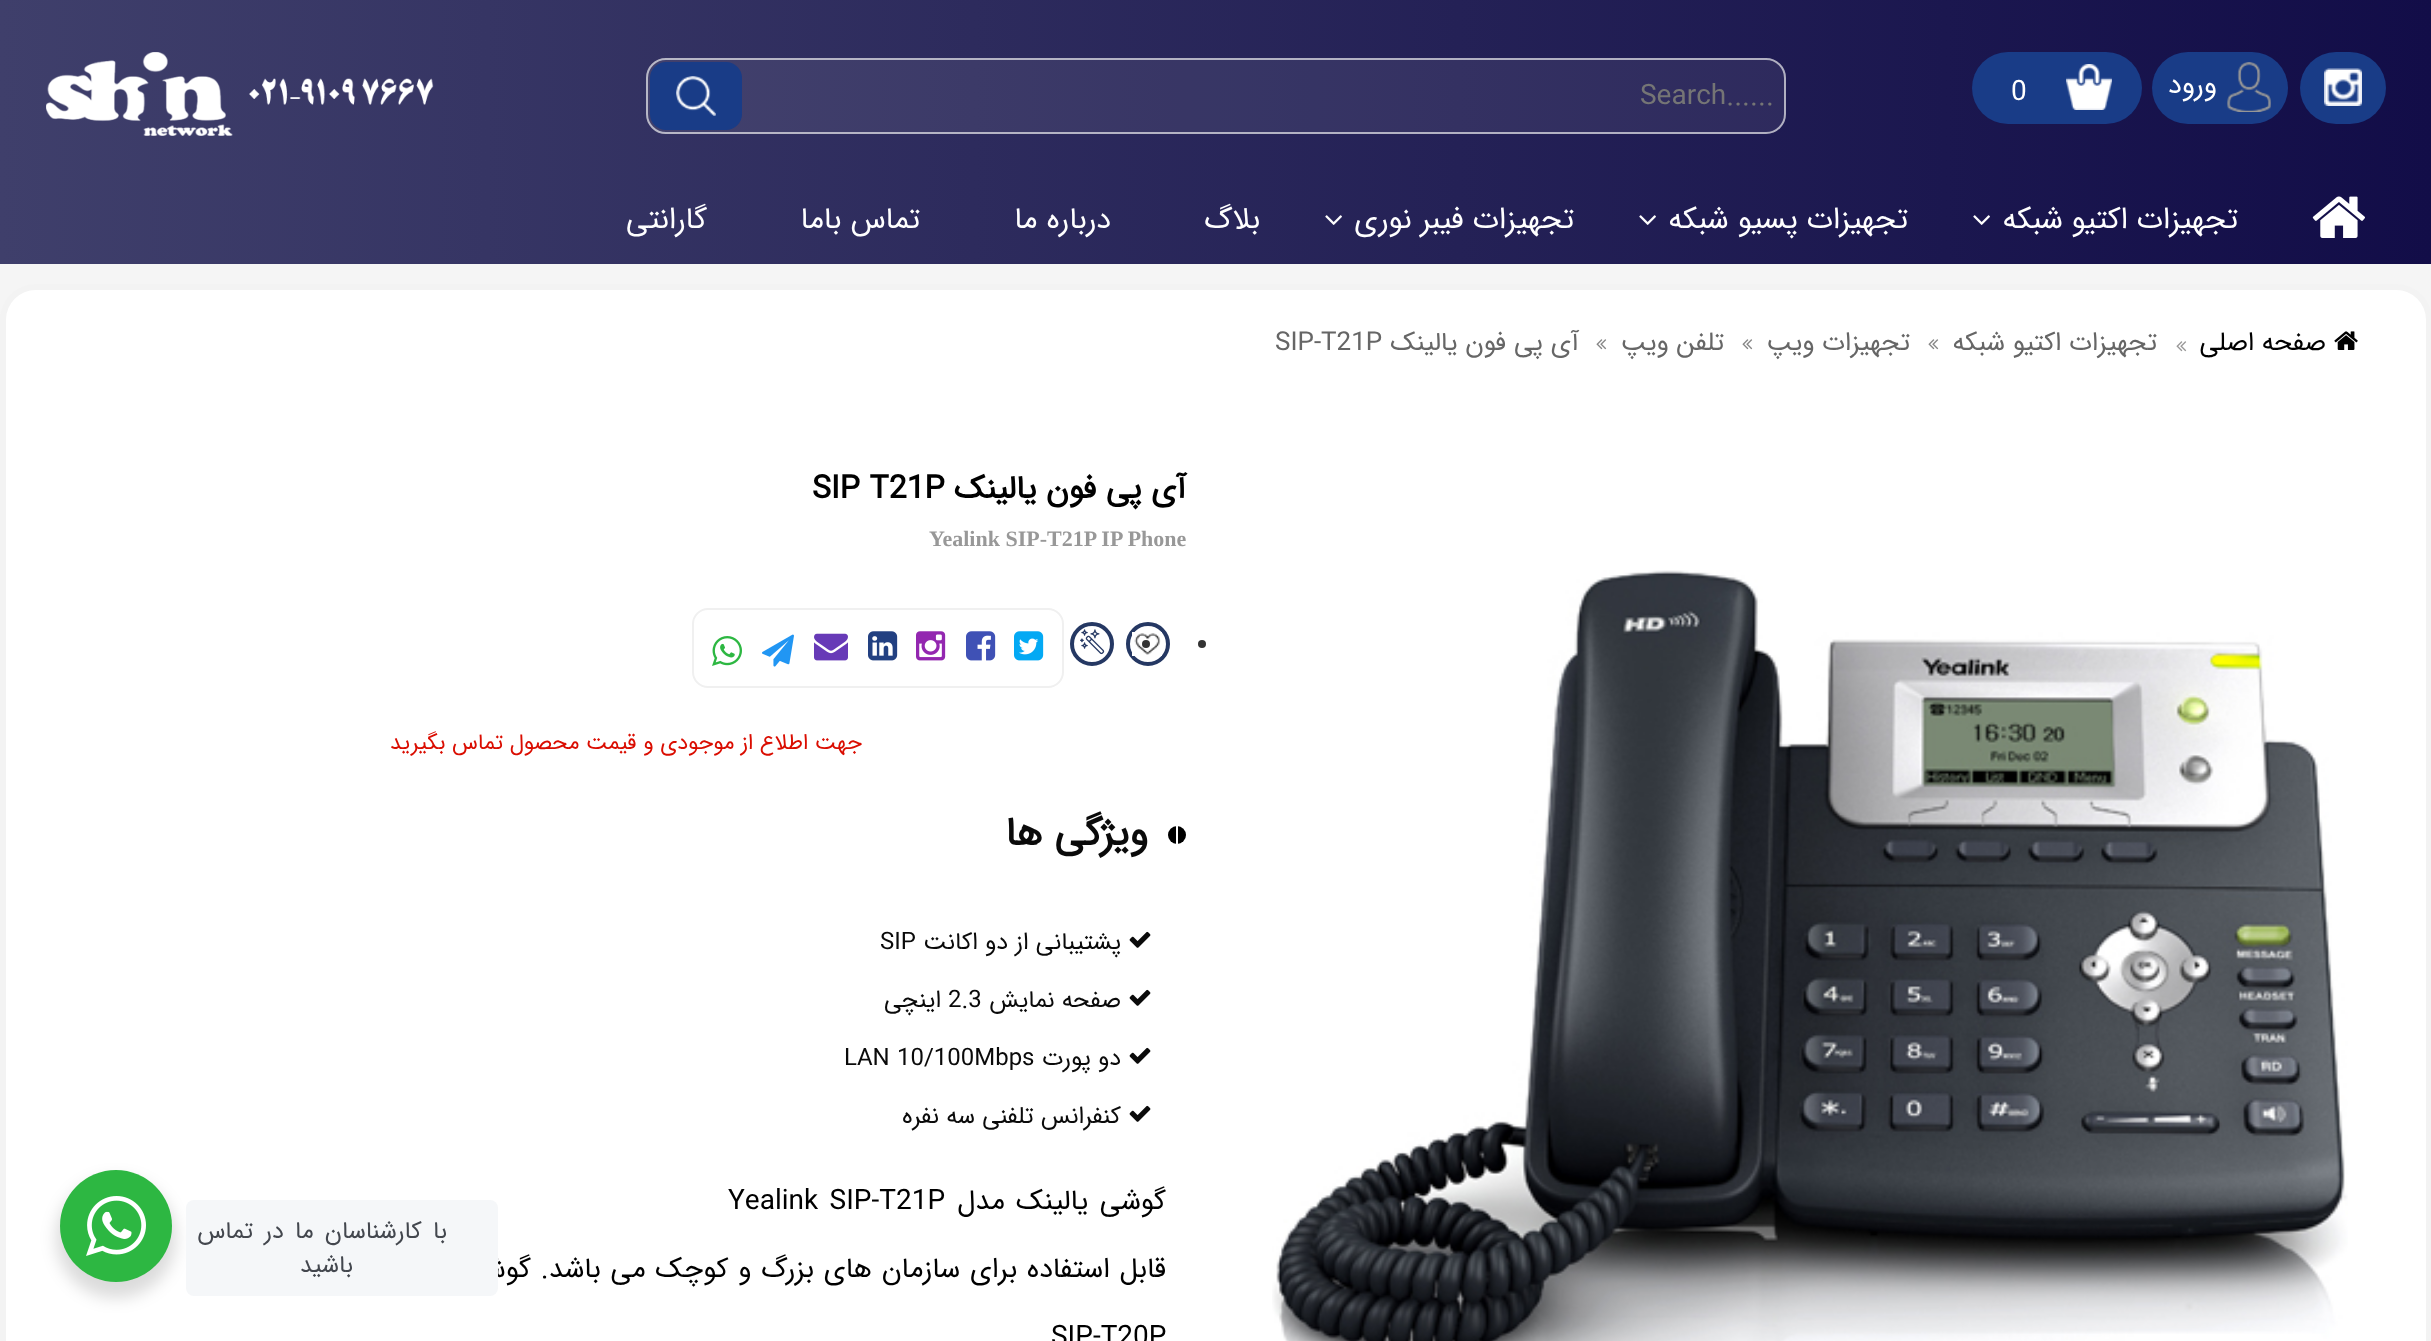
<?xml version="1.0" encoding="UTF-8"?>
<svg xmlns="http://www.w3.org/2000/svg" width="2431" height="1341">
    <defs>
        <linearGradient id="g1" gradientUnits="userSpaceOnUse" x1="0" y1="132" x2="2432" y2="132"><stop offset="0" stop-color="#3F3F6B"/><stop offset="1" stop-color="#120D48"/></linearGradient>
        <filter id="blur1" x="-50%" y="-200%" width="200%" height="500%"><feGaussianBlur stdDeviation="8"/></filter>
    </defs>
    <rect width="100%" height="100%" fill="#F5F5F5"/>
    <rect x="0" y="0" width="2431" height="264" fill="url(#g1)"/>
    <rect x="2300" y="52" width="86" height="72" rx="36" fill="#193C87"/>
    <image x="2324" y="68" width="38" height="38" href="img_01.png"/>
    <rect x="2152" y="52" width="136" height="72" rx="36" fill="#193C87"/>
    <image x="2227" y="62" width="44" height="50" href="img_02.png"/>
    <text x="2217" y="93" font-family="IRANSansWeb" font-size="28" direction="rtl" fill="#FFFFFF">ورود</text>
    <rect x="1972" y="52" width="170" height="72" rx="36" fill="#193C87"/>
    <image x="2066" y="64" width="46" height="46" href="img_03.png"/>
    <text x="2011" y="100" font-family="IRANSansWeb" font-size="28" fill="#FFFFFF">0</text>
    <rect x="646" y="58" width="1140" height="76" rx="20" fill="#F4F4F4" fill-opacity="0.08"/>
    <rect x="647" y="59" width="1138" height="74" rx="19" fill="none" stroke="#F4F4F4" stroke-opacity="0.66" stroke-width="2"/>
    <text x="1640" y="104" font-family="IRANSansWeb" font-size="28" fill="#757575">Search......</text>
    <rect x="650" y="62" width="92" height="68" rx="16" fill="#193C87"/>
    <image x="676" y="76" width="40" height="40" href="img_04.png"/>
    <image x="46" y="52" width="388" height="84" href="img_05.png"/>
    <image x="2312" y="196" width="53" height="42" href="img_06.png"/>
    <text x="2238" y="228" font-family="IRANSansWeb" font-size="30" direction="rtl" fill="#FFFFFF">تجهیزات اکتیو</text>
    <text x="2063" y="228" font-family="IRANSansWeb" font-size="30" direction="rtl" fill="#FFFFFF">شبکه</text>
    <image x="1973" y="215" width="17" height="10" href="img_07.png"/>
    <text x="1908" y="228" font-family="IRANSansWeb" font-size="30" direction="rtl" fill="#FFFFFF">تجهیزات پسیو شبکه</text>
    <image x="1639" y="215" width="17" height="10" href="img_08.png"/>
    <text x="1574" y="228" font-family="IRANSansWeb" font-size="30" direction="rtl" fill="#FFFFFF">تجهیزات فیبر نوری</text>
    <image x="1325" y="215" width="17" height="10" href="img_09.png"/>
    <text x="1260" y="228" font-family="IRANSansWeb" font-size="30" direction="rtl" fill="#FFFFFF">بلاگ</text>
    <text x="1111" y="228" font-family="IRANSansWeb" font-size="30" direction="rtl" fill="#FFFFFF">درباره ما</text>
    <text x="920" y="228" font-family="IRANSansWeb" font-size="30" direction="rtl" fill="#FFFFFF">تماس باما</text>
    <text x="707" y="228" font-family="IRANSansWeb" font-size="30" direction="rtl" fill="#FFFFFF">گارانتی</text>
    <rect x="3" y="287" width="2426" height="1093" rx="33" fill="#FFFFFF" stroke="#F3F3F3" stroke-width="6"/>
    <image x="2334" y="331" width="24" height="19" href="img_10.png"/>
    <text x="2326" y="350" font-family="IRANSansWeb" font-size="26" direction="rtl" fill="#000000">صفحه اصلی</text>
    <image x="2176" y="341" width="11" height="11" href="img_11.png"/>
    <text x="2157" y="350" font-family="IRANSansWeb" font-size="26" direction="rtl" fill="#666666">تجهیزات اکتیو</text>
    <text x="2005" y="350" font-family="IRANSansWeb" font-size="26" direction="rtl" fill="#666666">شبکه</text>
    <image x="1928" y="339" width="11" height="11" href="img_12.png"/>
    <text x="1910" y="350" font-family="IRANSansWeb" font-size="26" direction="rtl" fill="#666666">تجهیزات ویپ</text>
    <image x="1742" y="339" width="11" height="11" href="img_12.png"/>
    <text x="1724" y="350" font-family="IRANSansWeb" font-size="26" direction="rtl" fill="#666666">تلفن ویپ</text>
    <image x="1596" y="339" width="11" height="11" href="img_12.png"/>
    <text x="1579" y="350" font-family="IRANSansWeb" font-size="26" direction="rtl" fill="#666666">آی پی فون یالینک</text>
    <text x="1275" y="350" font-family="IRANSansWeb" font-size="26" fill="#666666">SIP-T21P</text>
    <image x="1272" y="570" width="1076" height="771" href="img_13.png"/>
    <text x="1186" y="498" font-family="IRANSansWeb" font-size="32" font-weight="700" direction="rtl" fill="#000000">آی پی فون یالینک</text>
    <text x="812" y="498" font-family="IRANSansWeb" font-size="32" font-weight="700" fill="#000000">SIP T21P</text>
    <text x="929" y="546" font-family="Liberation Serif" font-size="22" font-weight="700" fill="#989898">Yealink SIP-T21P IP Phone</text>
    <circle cx="1202" cy="644" r="4" fill="#333333"/>
    <circle cx="1148" cy="644" r="20" fill="none" stroke="#253863" stroke-width="4"/>
    <image x="1132" y="632" width="30" height="24" href="img_14.png"/>
    <circle cx="1146" cy="644" r="4" fill="#333333"/>
    <circle cx="1092" cy="644" r="20" fill="none" stroke="#253863" stroke-width="4"/>
    <image x="1080" y="629" width="25" height="26" href="img_15.png"/>
    <rect x="693" y="609" width="370" height="78" rx="15" fill="none" stroke="#F0F0F0" stroke-width="2"/>
    <image x="1014" y="631" width="30" height="30" href="img_16.png"/>
    <image x="966" y="631" width="30" height="30" href="img_17.png"/>
    <image x="916" y="631" width="30" height="30" href="img_18.png"/>
    <image x="868" y="631" width="30" height="30" href="img_19.png"/>
    <image x="814" y="633" width="34" height="28" href="img_20.png"/>
    <image x="762" y="634" width="32" height="33" href="img_21.png"/>
    <image x="712" y="636" width="30" height="30" href="img_22.png"/>
    <text x="862" y="749" font-family="IRANSansWeb" font-size="22" direction="rtl" fill="#DA0D01">جهت اطلاع از موجودی و قیمت محصول تماس بگیرید</text>
    <circle cx="1177" cy="835" r="9" fill="#000000"/>
    <rect x="1176" y="826" width="2" height="18" fill="#FFFFFF"/>
    <text x="1148" y="845" font-family="IRANSansWeb" font-size="40" font-weight="700" direction="rtl" fill="#0A0A0A">ویژگی ها</text>
    <image x="1129" y="931" width="22" height="17" href="img_23.png"/>
    <text x="1121" y="949" font-family="IRANSansWeb" font-size="24" direction="rtl" fill="#0A0A0A">پشتیبانی از دو اکانت</text>
    <text x="880" y="949" font-family="IRANSansWeb" font-size="24" fill="#0A0A0A">SIP</text>
    <image x="1129" y="989" width="22" height="17" href="img_23.png"/>
    <text x="1121" y="1007" font-family="IRANSansWeb" font-size="24" direction="rtl" fill="#0A0A0A">صفحه نمایش</text>
    <text x="948" y="1007" font-family="IRANSansWeb" font-size="24" fill="#0A0A0A">2.3</text>
    <text x="941" y="1007" font-family="IRANSansWeb" font-size="24" direction="rtl" fill="#0A0A0A">اینچی</text>
    <image x="1129" y="1047" width="22" height="17" href="img_23.png"/>
    <text x="1121" y="1065" font-family="IRANSansWeb" font-size="24" direction="rtl" fill="#0A0A0A">دو پورت</text>
    <text x="844" y="1065" font-family="IRANSansWeb" font-size="24" fill="#0A0A0A">LAN 10/100Mbps</text>
    <image x="1129" y="1105" width="22" height="17" href="img_23.png"/>
    <text x="1121" y="1123" font-family="IRANSansWeb" font-size="24" direction="rtl" fill="#0A0A0A">کنفرانس تلفنی سه نفره</text>
    <text x="1166" y="1209" word-spacing="3" font-family="IRANSansWeb" font-size="28" direction="rtl" fill="#000000">گوشی یالینک مدل</text>
    <text x="728" y="1209" word-spacing="3" font-family="IRANSansWeb" font-size="28" fill="#000000">Yealink SIP-T21P</text>
    <text x="1166" y="1277" word-spacing="1.5" font-family="IRANSansWeb" font-size="28" direction="rtl" fill="#000000">قابل استفاده برای سازمان های بزرگ و کوچک می باشد. گوشی تلفن</text>
    <text x="1051" y="1345" font-family="IRANSansWeb" font-size="28" fill="#000000">SIP-T20P</text>
    <rect x="56" y="1178" width="120" height="120" rx="60" fill="#000000" fill-opacity="0.14" filter="url(#blur1)"/>
    <rect x="186" y="1200" width="312" height="96" rx="8" fill="#F5F7F9"/>
    <text x="447" y="1238" word-spacing="4" font-family="IRANSansWeb" font-size="24" letter-spacing="-0.75" direction="rtl" fill="#43474E">با کارشناسان ما در تماس</text>
    <text x="353" y="1272" font-family="IRANSansWeb" font-size="24" letter-spacing="-0.75" direction="rtl" fill="#43474E">باشید</text>
    <circle cx="116" cy="1226" r="56" fill="#2DB742"/>
    <image x="86" y="1196" width="60" height="60" href="img_24.png"/>
</svg>
